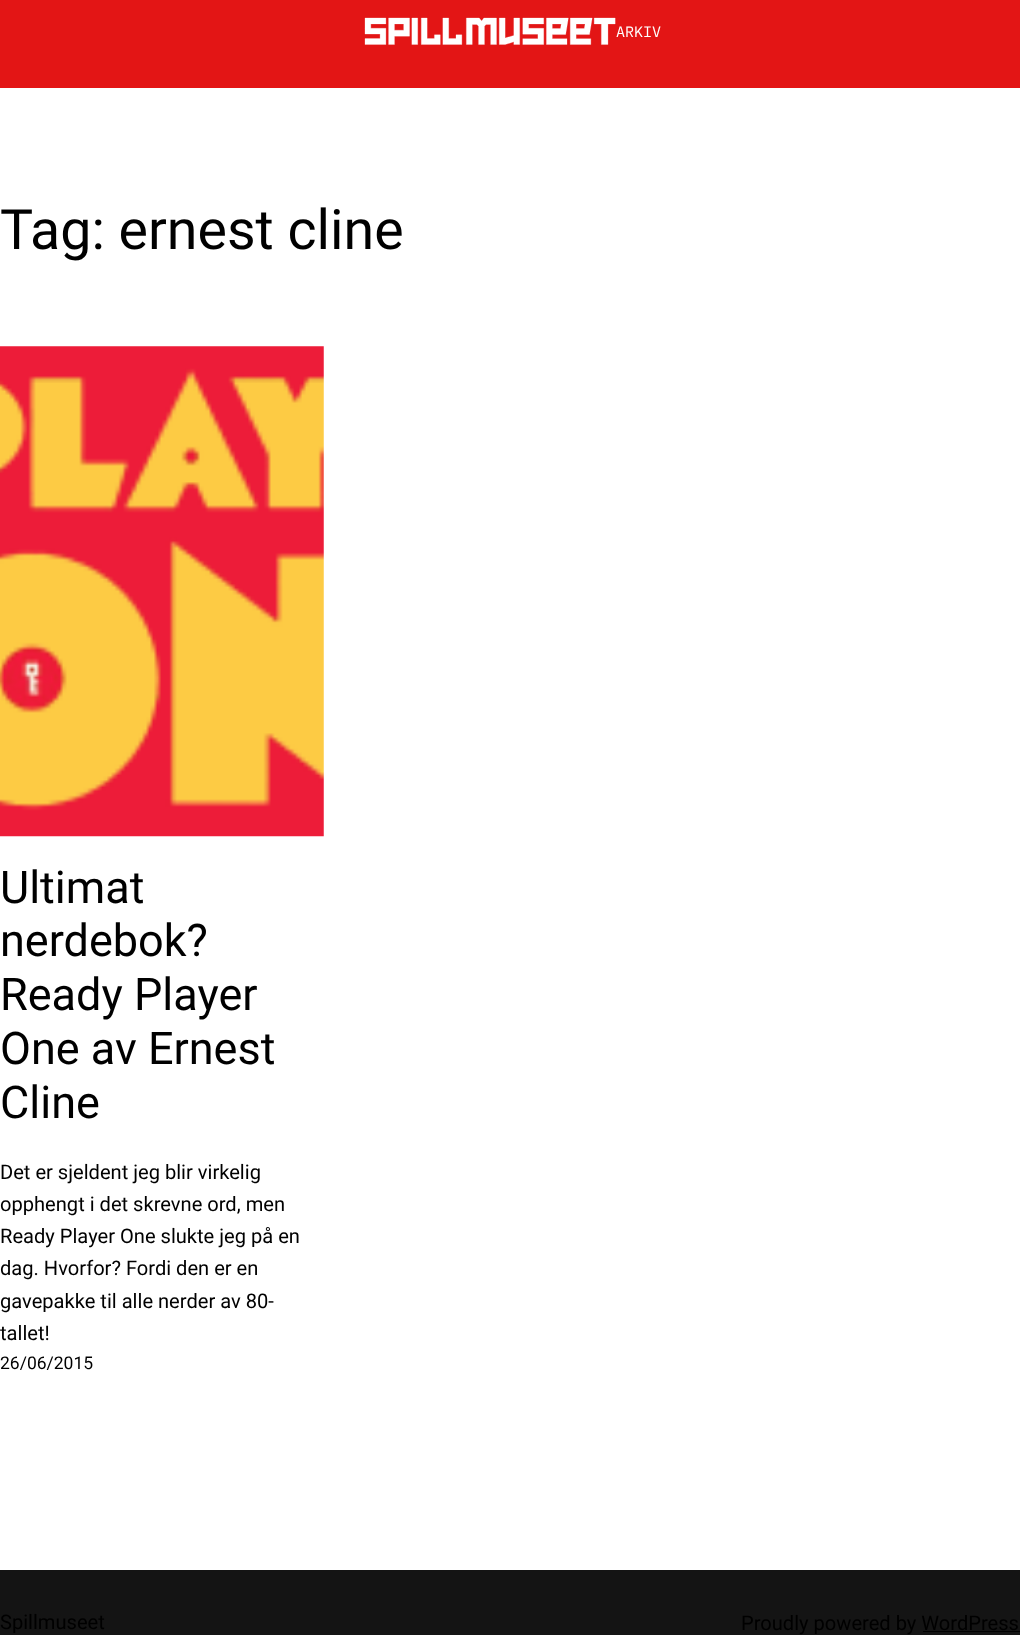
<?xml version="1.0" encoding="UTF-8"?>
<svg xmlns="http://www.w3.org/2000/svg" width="1020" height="1635">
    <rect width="100%" height="100%" fill="#FFFFFF"/>
    <rect x="0" y="0" width="1020" height="88" fill="#E31515"/>
    <image x="364" y="17" width="252" height="28" href="img_01.png"/>
    <text x="616" y="37" font-family="IBM Plex Mono" font-size="15" fill="#FFFFFF">ARKIV</text>
    <text x="0" y="249" font-family="Roboto" font-size="55.5" fill="#000000">Tag: ernest cline</text>
    <image x="0" y="346" width="324" height="491" href="img_02.png"/>
    <text font-family="Roboto" font-size="45" fill="#000000">
        <tspan x="0" y="903">Ultimat</tspan>
        <tspan x="0" y="956">nerdebok?</tspan>
        <tspan x="0" y="1010">Ready Player</tspan>
        <tspan x="0" y="1064">One av Ernest</tspan>
        <tspan x="0" y="1118">Cline</tspan>
    </text>
    <text font-family="Roboto" font-size="20.1" fill="#000000">
        <tspan x="0" y="1179">Det er sjeldent jeg blir virkelig</tspan>
        <tspan x="0" y="1211">opphengt i det skrevne ord, men</tspan>
        <tspan x="0" y="1243">Ready Player One slukte jeg på en</tspan>
        <tspan x="0" y="1275">dag. Hvorfor? Fordi den er en</tspan>
        <tspan x="0" y="1308">gavepakke til alle nerder av 80-</tspan>
        <tspan x="0" y="1340">tallet!</tspan>
    </text>
    <text x="0" y="1369" font-family="Roboto" font-size="17.5" fill="#000000">26/06/2015</text>
    <rect x="0" y="1570" width="1020" height="65" fill="#141414"/>
    <text x="0" y="1629" font-family="Roboto" font-size="20.1" fill="#000000">Spillmuseet</text>
    <text x="741" y="1630" font-family="Roboto" font-size="20.1" fill="#000000">Proudly powered by WordPress</text>
    <rect x="923" y="1631" width="97" height="1" fill="#000000"/>
</svg>
